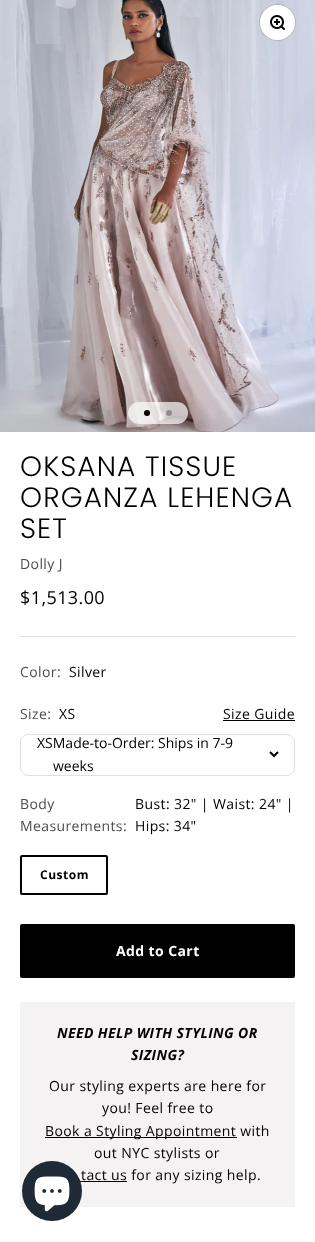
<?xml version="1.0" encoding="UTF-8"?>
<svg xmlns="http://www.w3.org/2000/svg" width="315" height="1242">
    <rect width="100%" height="100%" fill="#FFFFFF"/>
    <image x="0" y="0" width="315" height="432" href="img_01.png"/>
    <circle cx="277.5" cy="22.5" r="18" fill="none" stroke="#000000" stroke-opacity="0.12"/>
    <circle cx="277.5" cy="22.5" r="17.5" fill="#FFFFFF"/>
    <image x="270" y="15" width="15" height="15" href="img_02.png"/>
    <rect x="128" y="402" width="60" height="22" rx="11" fill="#FFFFFF" fill-opacity="0.7"/>
    <circle cx="147" cy="413" r="3" fill="#000000"/>
    <circle cx="169" cy="413" r="3" fill="#000000" fill-opacity="0.3"/>
    <text font-family="Poppins" font-size="28" font-weight="300" letter-spacing="1.1" fill="#000000">
        <tspan x="20" y="476">OKSANA TISSUE</tspan>
        <tspan x="20" y="507">ORGANZA LEHENGA</tspan>
        <tspan x="20" y="538">SET</tspan>
    </text>
    <text x="20" y="569" font-family="Open Sans" font-size="14" letter-spacing="0.4" fill="#4D4D4D">Dolly J</text>
    <text x="20" y="604" font-family="Open Sans" font-size="18" letter-spacing="0.4" fill="#000000">$1,513.00</text>
    <rect x="20" y="636" width="275" height="1" fill="#E0E0E0"/>
    <text x="20" y="677" font-family="Open Sans" font-size="14" letter-spacing="0.4" fill="#4D4D4D">Color:</text>
    <text x="69" y="677" font-family="Open Sans" font-size="14" letter-spacing="0.4" fill="#000000">Silver</text>
    <text x="20" y="719" font-family="Open Sans" font-size="14" letter-spacing="0.4" fill="#4D4D4D">Size:</text>
    <text x="59" y="719" font-family="Open Sans" font-size="14" letter-spacing="0.4" fill="#000000">XS</text>
    <text x="223" y="719" font-family="Open Sans" font-size="14" letter-spacing="0.4" fill="#000000">Size Guide</text>
    <rect x="223" y="720" width="72" height="1" fill="#000000"/>
    <rect x="20.5" y="734.5" width="274" height="41" rx="7.5" fill="none" stroke="#E0E0E0"/>
    <text x="37" y="748" font-family="Open Sans" font-size="14" fill="#000000">XSMade-to-Order: Ships in 7-9</text>
    <text x="53" y="771" font-family="Open Sans" font-size="14" fill="#000000">weeks</text>
    <path d="M 270 752 L 274 756 L 278 752" fill="none" stroke="#000000" stroke-width="2"/>
    <text font-family="Open Sans" font-size="14" letter-spacing="0.4" fill="#4D4D4D">
        <tspan x="20" y="809">Body</tspan>
        <tspan x="20" y="831">Measurements:</tspan>
    </text>
    <text font-family="Open Sans" font-size="14" letter-spacing="0.4" fill="#000000">
        <tspan x="135" y="809">Bust: 32" | Waist: 24" |</tspan>
        <tspan x="135" y="831">Hips: 34"</tspan>
    </text>
    <rect x="21" y="856" width="86" height="38" rx="1" fill="none" stroke="#000000" stroke-width="2"/>
    <text x="40" y="879" font-family="Open Sans" font-size="12" font-weight="700" letter-spacing="0.5" fill="#000000">Custom</text>
    <rect x="20" y="924" width="275" height="54" rx="2" fill="#000000"/>
    <text x="116" y="956" font-family="Open Sans" font-size="14" font-weight="700" letter-spacing="0.4" fill="#FFFFFF">Add to Cart</text>
    <rect x="20" y="1002" width="275" height="205" fill="#F4F2F3"/>
    <text x="57" y="1038" font-family="Open Sans" font-size="14" font-weight="700" font-style="italic" letter-spacing="0.4" fill="#000000">NEED HELP WITH STYLING OR</text>
    <text x="131" y="1060" font-family="Open Sans" font-size="14" font-weight="700" font-style="italic" letter-spacing="0.4" fill="#000000">SIZING?</text>
    <text x="49" y="1091" font-family="Open Sans" font-size="14" letter-spacing="0.4" fill="#000000">Our styling experts are here for</text>
    <text x="102" y="1113" font-family="Open Sans" font-size="14" letter-spacing="0.4" fill="#000000">you! Feel free to</text>
    <rect x="45" y="1137" width="192" height="1" fill="#000000"/>
    <text x="45" y="1136" font-family="Open Sans" font-size="14" letter-spacing="0.4" fill="#000000">Book a Styling Appointment with</text>
    <text x="94" y="1158" font-family="Open Sans" font-size="14" letter-spacing="0.4" fill="#000000">out NYC stylists or</text>
    <rect x="80" y="1181" width="47" height="1" fill="#000000"/>
    <text x="81" y="1180" font-family="Open Sans" font-size="14" letter-spacing="0.4" fill="#000000">tact us for any sizing help.</text>
    <circle cx="52" cy="1191" r="30" fill="#202A36"/>
    <image x="34" y="1176" width="36" height="36" href="img_03.png"/>
</svg>
